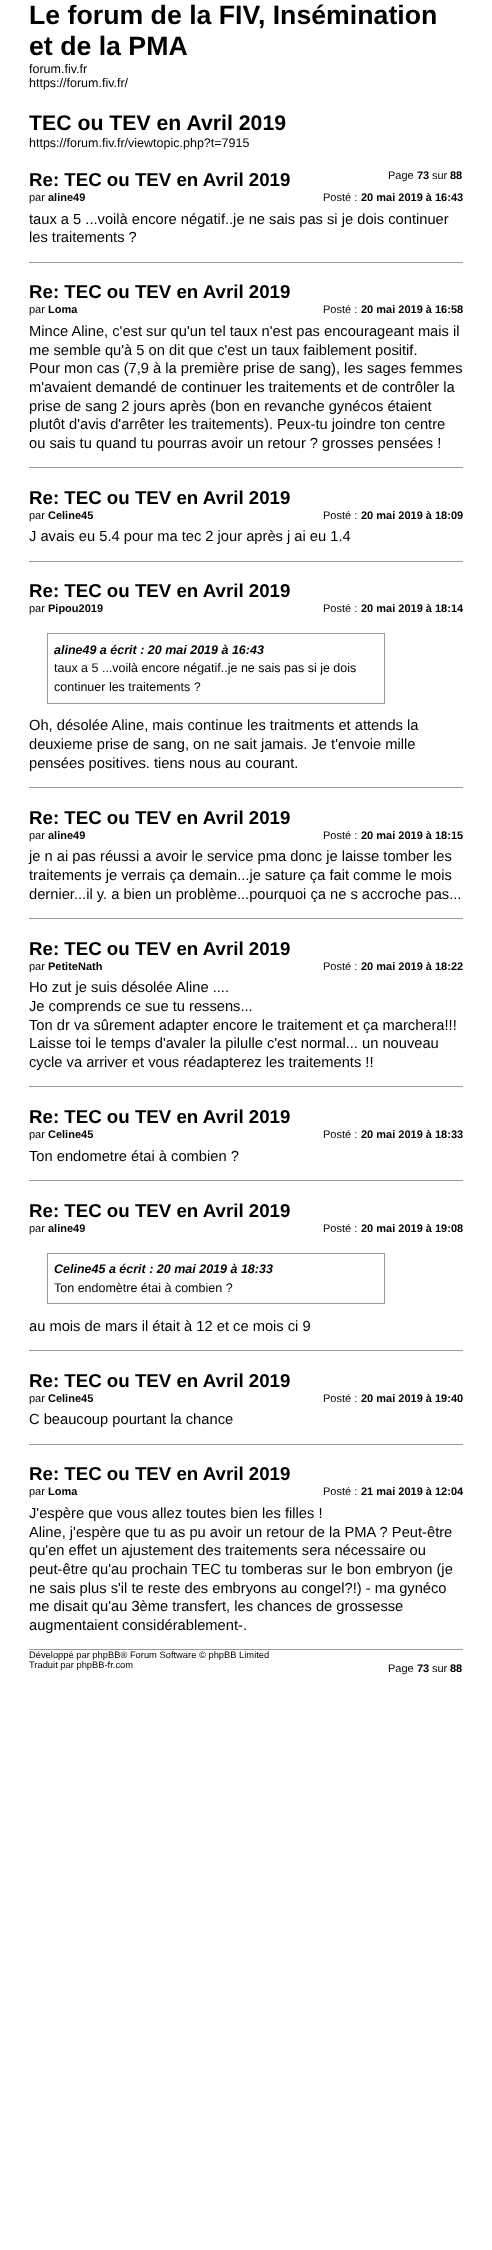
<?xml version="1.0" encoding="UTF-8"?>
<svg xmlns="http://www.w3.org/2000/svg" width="492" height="2250">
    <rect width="100%" height="100%" fill="#FFFFFF"/>
    <text font-family="Liberation Sans" font-size="26.7" font-weight="700" fill="#000000">
        <tspan x="29" y="24">Le forum de la FIV, Insémination</tspan>
        <tspan x="29" y="55">et de la PMA</tspan>
    </text>
    <text font-family="Liberation Sans" font-size="12.5" fill="#000000">
        <tspan x="29" y="73">forum.fiv.fr</tspan>
        <tspan x="29" y="87">https://forum.fiv.fr/</tspan>
    </text>
    <text x="29" y="130" font-family="Liberation Sans" font-size="21.25" font-weight="700" fill="#000000">TEC ou TEV en Avril 2019</text>
    <text x="29" y="147" font-family="Liberation Sans" font-size="12.5" fill="#000000">https://forum.fiv.fr/viewtopic.php?t=7915</text>
    <text x="388" y="179" font-family="Liberation Sans" font-size="11" fill="#000000">Page</text>
    <text x="417" y="179" font-family="Liberation Sans" font-size="11" font-weight="700" fill="#000000">73</text>
    <text x="432" y="179" font-family="Liberation Sans" font-size="11" fill="#000000">sur</text>
    <text x="450" y="179" font-family="Liberation Sans" font-size="11" font-weight="700" fill="#000000">88</text>
    <text x="29" y="186" font-family="Liberation Sans" font-size="18.7" font-weight="700" fill="#000000">Re: TEC ou TEV en Avril 2019</text>
    <text x="29" y="201" font-family="Liberation Sans" font-size="11" fill="#000000">par</text>
    <text x="48" y="201" font-family="Liberation Sans" font-size="11" font-weight="700" fill="#000000">aline49</text>
    <text x="323" y="201" font-family="Liberation Sans" font-size="11" fill="#000000">Posté :</text>
    <text x="361" y="201" font-family="Liberation Sans" font-size="11" font-weight="700" fill="#000000">20 mai 2019 à 16:43</text>
    <text font-family="Liberation Sans" font-size="14.7" fill="#000000">
        <tspan x="29" y="224">taux a 5 ...voilà encore négatif..je ne sais pas si je dois continuer</tspan>
        <tspan x="29" y="242">les traitements ?</tspan>
    </text>
    <rect x="29" y="262" width="434" height="1" fill="#999999"/>
    <text x="29" y="298" font-family="Liberation Sans" font-size="18.7" font-weight="700" fill="#000000">Re: TEC ou TEV en Avril 2019</text>
    <text x="29" y="313" font-family="Liberation Sans" font-size="11" fill="#000000">par</text>
    <text x="48" y="313" font-family="Liberation Sans" font-size="11" font-weight="700" fill="#000000">Loma</text>
    <text x="323" y="313" font-family="Liberation Sans" font-size="11" fill="#000000">Posté :</text>
    <text x="361" y="313" font-family="Liberation Sans" font-size="11" font-weight="700" fill="#000000">20 mai 2019 à 16:58</text>
    <text font-family="Liberation Sans" font-size="14.7" fill="#000000">
        <tspan x="29" y="336">Mince Aline, c'est sur qu'un tel taux n'est pas encourageant mais il</tspan>
        <tspan x="29" y="355">me semble qu'à 5 on dit que c'est un taux faiblement positif.</tspan>
        <tspan x="29" y="373">Pour mon cas (7,9 à la première prise de sang), les sages femmes</tspan>
        <tspan x="29" y="392">m'avaient demandé de continuer les traitements et de contrôler la</tspan>
        <tspan x="29" y="411">prise de sang 2 jours après (bon en revanche gynécos étaient</tspan>
        <tspan x="29" y="429">plutôt d'avis d'arrêter les traitements). Peux-tu joindre ton centre</tspan>
        <tspan x="29" y="448">ou sais tu quand tu pourras avoir un retour ? grosses pensées !</tspan>
    </text>
    <rect x="29" y="467" width="434" height="1" fill="#999999"/>
    <text x="29" y="504" font-family="Liberation Sans" font-size="18.7" font-weight="700" fill="#000000">Re: TEC ou TEV en Avril 2019</text>
    <text x="29" y="519" font-family="Liberation Sans" font-size="11" fill="#000000">par</text>
    <text x="48" y="519" font-family="Liberation Sans" font-size="11" font-weight="700" fill="#000000">Celine45</text>
    <text x="323" y="519" font-family="Liberation Sans" font-size="11" fill="#000000">Posté :</text>
    <text x="361" y="519" font-family="Liberation Sans" font-size="11" font-weight="700" fill="#000000">20 mai 2019 à 18:09</text>
    <text x="29" y="541" font-family="Liberation Sans" font-size="14.7" fill="#000000">J avais eu 5.4 pour ma tec 2 jour après j ai eu 1.4</text>
    <rect x="29" y="561" width="434" height="1" fill="#999999"/>
    <text x="29" y="597" font-family="Liberation Sans" font-size="18.7" font-weight="700" fill="#000000">Re: TEC ou TEV en Avril 2019</text>
    <text x="29" y="612" font-family="Liberation Sans" font-size="11" fill="#000000">par</text>
    <text x="48" y="612" font-family="Liberation Sans" font-size="11" font-weight="700" fill="#000000">Pipou2019</text>
    <text x="323" y="612" font-family="Liberation Sans" font-size="11" fill="#000000">Posté :</text>
    <text x="361" y="612" font-family="Liberation Sans" font-size="11" font-weight="700" fill="#000000">20 mai 2019 à 18:14</text>
    <rect x="47.5" y="633.5" width="337" height="70" fill="none" stroke="#999999"/>
    <text x="54" y="654" font-family="Liberation Sans" font-size="12.5" font-weight="700" font-style="italic" fill="#000000">aline49 a écrit : 20 mai 2019 à 16:43</text>
    <text font-family="Liberation Sans" font-size="12.5" fill="#000000">
        <tspan x="54" y="672">taux a 5 ...voilà encore négatif..je ne sais pas si je dois</tspan>
        <tspan x="54" y="691">continuer les traitements ?</tspan>
    </text>
    <text font-family="Liberation Sans" font-size="14.7" fill="#000000">
        <tspan x="29" y="730">Oh, désolée Aline, mais continue les traitments et attends la</tspan>
        <tspan x="29" y="749">deuxieme prise de sang, on ne sait jamais. Je t'envoie mille</tspan>
        <tspan x="29" y="768">pensées positives. tiens nous au courant.</tspan>
    </text>
    <rect x="29" y="787" width="434" height="1" fill="#999999"/>
    <text x="29" y="824" font-family="Liberation Sans" font-size="18.7" font-weight="700" fill="#000000">Re: TEC ou TEV en Avril 2019</text>
    <text x="29" y="839" font-family="Liberation Sans" font-size="11" fill="#000000">par</text>
    <text x="48" y="839" font-family="Liberation Sans" font-size="11" font-weight="700" fill="#000000">aline49</text>
    <text x="323" y="839" font-family="Liberation Sans" font-size="11" fill="#000000">Posté :</text>
    <text x="361" y="839" font-family="Liberation Sans" font-size="11" font-weight="700" fill="#000000">20 mai 2019 à 18:15</text>
    <text font-family="Liberation Sans" font-size="14.7" fill="#000000">
        <tspan x="29" y="861">je n ai pas réussi a avoir le service pma donc je laisse tomber les</tspan>
        <tspan x="29" y="880">traitements je verrais ça demain...je sature ça fait comme le mois</tspan>
        <tspan x="29" y="899">dernier...il y. a bien un problème...pourquoi ça ne s accroche pas...</tspan>
    </text>
    <rect x="29" y="918" width="434" height="1" fill="#999999"/>
    <text x="29" y="955" font-family="Liberation Sans" font-size="18.7" font-weight="700" fill="#000000">Re: TEC ou TEV en Avril 2019</text>
    <text x="29" y="970" font-family="Liberation Sans" font-size="11" fill="#000000">par</text>
    <text x="48" y="970" font-family="Liberation Sans" font-size="11" font-weight="700" fill="#000000">PetiteNath</text>
    <text x="323" y="970" font-family="Liberation Sans" font-size="11" fill="#000000">Posté :</text>
    <text x="361" y="970" font-family="Liberation Sans" font-size="11" font-weight="700" fill="#000000">20 mai 2019 à 18:22</text>
    <text font-family="Liberation Sans" font-size="14.7" fill="#000000">
        <tspan x="29" y="992">Ho zut je suis désolée Aline ....</tspan>
        <tspan x="29" y="1011">Je comprends ce sue tu ressens...</tspan>
        <tspan x="29" y="1030">Ton dr va sûrement adapter encore le traitement et ça marchera!!!</tspan>
        <tspan x="29" y="1048">Laisse toi le temps d'avaler la pilulle c'est normal... un nouveau</tspan>
        <tspan x="29" y="1067">cycle va arriver et vous réadapterez les traitements !!</tspan>
    </text>
    <rect x="29" y="1086" width="434" height="1" fill="#999999"/>
    <text x="29" y="1123" font-family="Liberation Sans" font-size="18.7" font-weight="700" fill="#000000">Re: TEC ou TEV en Avril 2019</text>
    <text x="29" y="1138" font-family="Liberation Sans" font-size="11" fill="#000000">par</text>
    <text x="48" y="1138" font-family="Liberation Sans" font-size="11" font-weight="700" fill="#000000">Celine45</text>
    <text x="323" y="1138" font-family="Liberation Sans" font-size="11" fill="#000000">Posté :</text>
    <text x="361" y="1138" font-family="Liberation Sans" font-size="11" font-weight="700" fill="#000000">20 mai 2019 à 18:33</text>
    <text x="29" y="1161" font-family="Liberation Sans" font-size="14.7" fill="#000000">Ton endometre étai à combien ?</text>
    <rect x="29" y="1180" width="434" height="1" fill="#999999"/>
    <text x="29" y="1217" font-family="Liberation Sans" font-size="18.7" font-weight="700" fill="#000000">Re: TEC ou TEV en Avril 2019</text>
    <text x="29" y="1232" font-family="Liberation Sans" font-size="11" fill="#000000">par</text>
    <text x="48" y="1232" font-family="Liberation Sans" font-size="11" font-weight="700" fill="#000000">aline49</text>
    <text x="323" y="1232" font-family="Liberation Sans" font-size="11" fill="#000000">Posté :</text>
    <text x="361" y="1232" font-family="Liberation Sans" font-size="11" font-weight="700" fill="#000000">20 mai 2019 à 19:08</text>
    <rect x="47.5" y="1253.5" width="337" height="50" fill="none" stroke="#999999"/>
    <text x="54" y="1273" font-family="Liberation Sans" font-size="12.5" font-weight="700" font-style="italic" fill="#000000">Celine45 a écrit : 20 mai 2019 à 18:33</text>
    <text x="54" y="1292" font-family="Liberation Sans" font-size="12.5" fill="#000000">Ton endomètre étai à combien ?</text>
    <text x="29" y="1331" font-family="Liberation Sans" font-size="14.7" fill="#000000">au mois de mars il était à 12 et ce mois ci 9</text>
    <rect x="29" y="1350" width="434" height="1" fill="#999999"/>
    <text x="29" y="1387" font-family="Liberation Sans" font-size="18.7" font-weight="700" fill="#000000">Re: TEC ou TEV en Avril 2019</text>
    <text x="29" y="1402" font-family="Liberation Sans" font-size="11" fill="#000000">par</text>
    <text x="48" y="1402" font-family="Liberation Sans" font-size="11" font-weight="700" fill="#000000">Celine45</text>
    <text x="323" y="1402" font-family="Liberation Sans" font-size="11" fill="#000000">Posté :</text>
    <text x="361" y="1402" font-family="Liberation Sans" font-size="11" font-weight="700" fill="#000000">20 mai 2019 à 19:40</text>
    <text x="29" y="1424" font-family="Liberation Sans" font-size="14.7" fill="#000000">C beaucoup pourtant la chance</text>
    <rect x="29" y="1444" width="434" height="1" fill="#999999"/>
    <text x="29" y="1480" font-family="Liberation Sans" font-size="18.7" font-weight="700" fill="#000000">Re: TEC ou TEV en Avril 2019</text>
    <text x="29" y="1495" font-family="Liberation Sans" font-size="11" fill="#000000">par</text>
    <text x="48" y="1495" font-family="Liberation Sans" font-size="11" font-weight="700" fill="#000000">Loma</text>
    <text x="323" y="1495" font-family="Liberation Sans" font-size="11" fill="#000000">Posté :</text>
    <text x="361" y="1495" font-family="Liberation Sans" font-size="11" font-weight="700" fill="#000000">21 mai 2019 à 12:04</text>
    <text font-family="Liberation Sans" font-size="14.7" fill="#000000">
        <tspan x="29" y="1518">J'espère que vous allez toutes bien les filles !</tspan>
        <tspan x="29" y="1537">Aline, j'espère que tu as pu avoir un retour de la PMA ? Peut-être</tspan>
        <tspan x="29" y="1555">qu'en effet un ajustement des traitements sera nécessaire ou</tspan>
        <tspan x="29" y="1574">peut-être qu'au prochain TEC tu tomberas sur le bon embryon (je</tspan>
        <tspan x="29" y="1593">ne sais plus s'il te reste des embryons au congel?!) - ma gynéco</tspan>
        <tspan x="29" y="1611">me disait qu'au 3ème transfert, les chances de grossesse</tspan>
        <tspan x="29" y="1630">augmentaient considérablement-.</tspan>
    </text>
    <rect x="29" y="1649" width="434" height="1" fill="#999999"/>
    <text font-family="Liberation Sans" font-size="9.35" fill="#000000">
        <tspan x="29" y="1658">Développé par phpBB® Forum Software © phpBB Limited</tspan>
        <tspan x="29" y="1668">Traduit par phpBB-fr.com</tspan>
    </text>
    <text x="388" y="1672" font-family="Liberation Sans" font-size="11" fill="#000000">Page</text>
    <text x="417" y="1672" font-family="Liberation Sans" font-size="11" font-weight="700" fill="#000000">73</text>
    <text x="432" y="1672" font-family="Liberation Sans" font-size="11" fill="#000000">sur</text>
    <text x="450" y="1672" font-family="Liberation Sans" font-size="11" font-weight="700" fill="#000000">88</text>
</svg>
